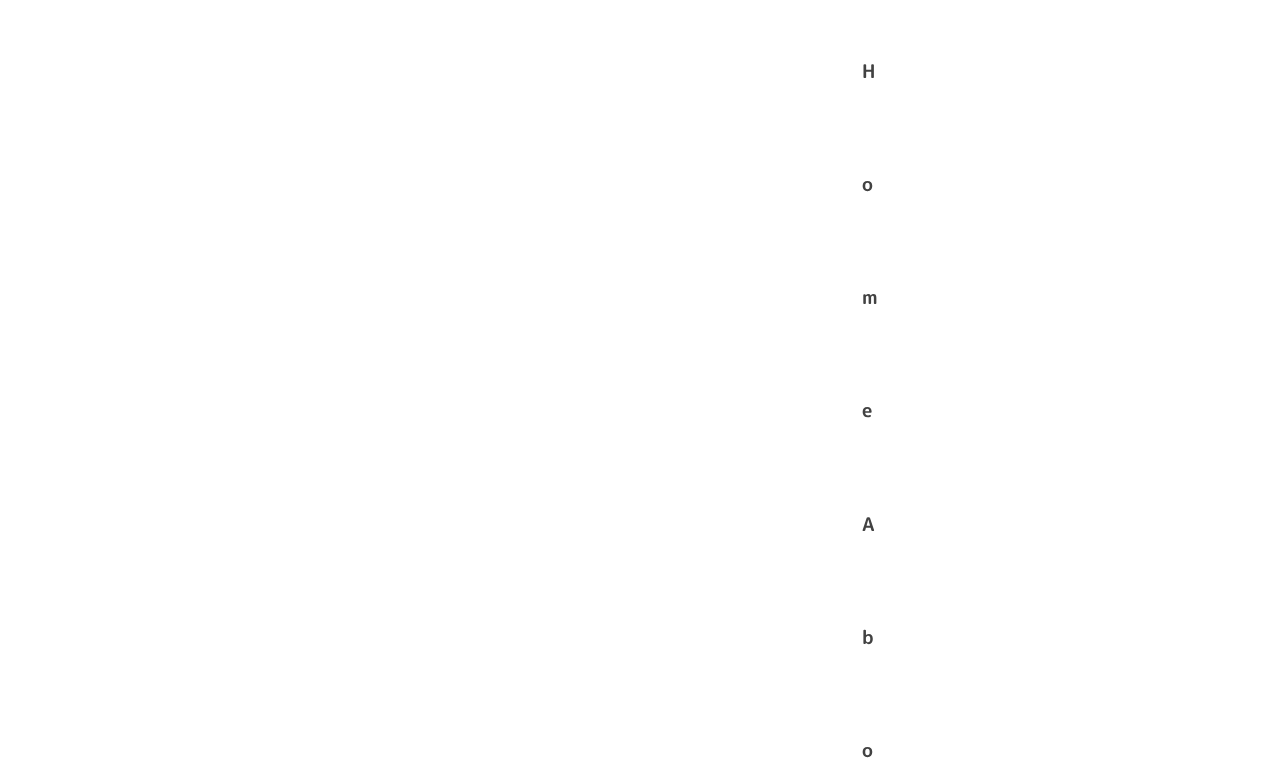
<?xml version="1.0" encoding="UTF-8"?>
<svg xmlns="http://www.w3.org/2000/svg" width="1288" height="774">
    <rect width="100%" height="100%" fill="#FFFFFF"/>
    <text x="862" y="78" font-family="'Rounded Mplus 1c Bold'" font-size="19" font-weight="700" fill="#424242">H</text>
    <text x="862" y="191" font-family="'Rounded Mplus 1c Bold'" font-size="19" font-weight="700" fill="#424242">o</text>
    <text x="862" y="304" font-family="'Rounded Mplus 1c Bold'" font-size="19" font-weight="700" fill="#424242">m</text>
    <text x="862" y="417" font-family="'Rounded Mplus 1c Bold'" font-size="19" font-weight="700" fill="#424242">e</text>
    <text x="862" y="531" font-family="'Rounded Mplus 1c Bold'" font-size="19" font-weight="700" fill="#424242">A</text>
    <text x="862" y="644" font-family="'Rounded Mplus 1c Bold'" font-size="19" font-weight="700" fill="#424242">b</text>
    <text x="862" y="757" font-family="'Rounded Mplus 1c Bold'" font-size="19" font-weight="700" fill="#424242">o</text>
</svg>
